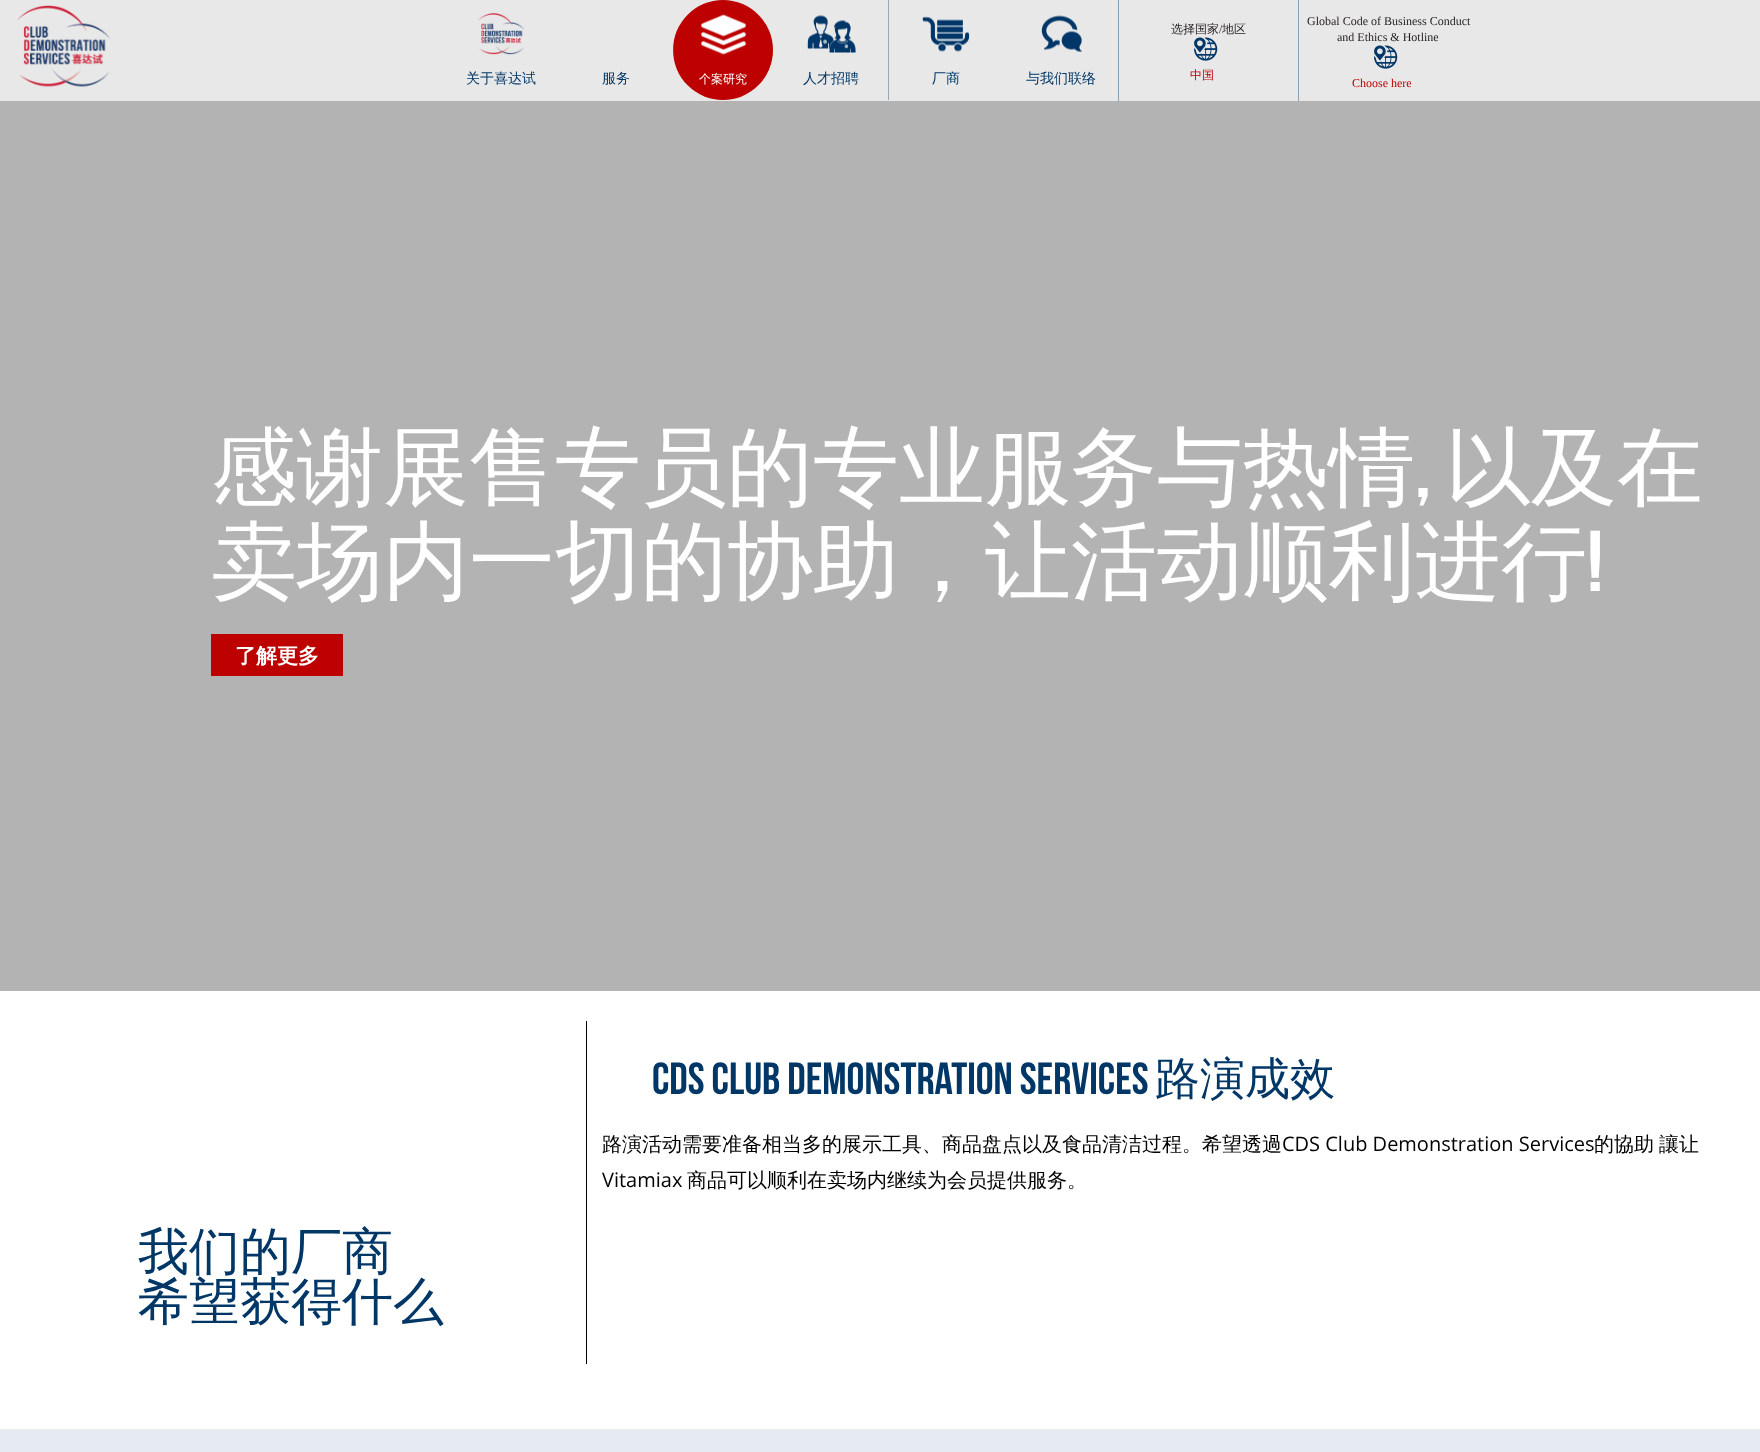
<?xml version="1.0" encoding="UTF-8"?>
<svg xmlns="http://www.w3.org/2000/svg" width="1760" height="1452">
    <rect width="100%" height="100%" fill="#FFFFFF"/>
    <rect x="0" y="0" width="1760" height="101" fill="#E8E8E8"/>
    <image x="17" y="5" width="93" height="82" href="img_01.png"/>
    <image x="478" y="13" width="46" height="42" href="img_02.png"/>
    <text x="466" y="83" font-family="WenQuanYi Zen Hei" font-size="14" font-weight="500" fill="#003767">关于喜达试</text>
    <text x="602" y="83" font-family="WenQuanYi Zen Hei" font-size="14" font-weight="500" fill="#003767">服务</text>
    <circle cx="723" cy="50" r="50" fill="#BD0000"/>
    <rect x="673" y="40" width="1" height="20" fill="#FFFFFF" fill-opacity="0.1"/>
    <image x="701" y="14" width="45" height="41" href="img_03.png"/>
    <text x="699" y="83" font-family="WenQuanYi Zen Hei" font-size="12" font-weight="500" fill="#FFFFFF">个案研究</text>
    <image x="807" y="15" width="49" height="38" href="img_04.png"/>
    <text x="803" y="83" font-family="WenQuanYi Zen Hei" font-size="14" font-weight="500" fill="#003767">人才招聘</text>
    <rect x="888" y="0" width="1" height="100" fill="#94A9B9"/>
    <image x="922" y="16" width="48" height="36" href="img_05.png"/>
    <text x="932" y="83" font-family="WenQuanYi Zen Hei" font-size="14" font-weight="500" fill="#003767">厂商</text>
    <image x="1041" y="15" width="41" height="38" href="img_06.png"/>
    <text x="1026" y="83" font-family="WenQuanYi Zen Hei" font-size="14" font-weight="500" fill="#003767">与我们联络</text>
    <rect x="1118" y="0" width="1" height="101" fill="#889FB1"/>
    <text x="1171" y="33" font-family="WenQuanYi Zen Hei" font-size="12" font-weight="500" fill="#231F20">选择国家</text>
    <text x="1219" y="33" font-family="Liberation Serif" font-size="12" fill="#231F20">/</text>
    <text x="1222" y="33" font-family="WenQuanYi Zen Hei" font-size="12" font-weight="500" fill="#231F20">地区</text>
    <image x="1194" y="37" width="24" height="24" href="img_07.png"/>
    <text x="1190" y="79" font-family="WenQuanYi Zen Hei" font-size="12" font-weight="500" fill="#BD0200">中国</text>
    <rect x="1298" y="0" width="1" height="101" fill="#889FB1"/>
    <text x="1307" y="25" font-family="Liberation Serif" font-size="12" fill="#231F20">Global Code of Business Conduct</text>
    <text x="1337" y="41" font-family="Liberation Serif" font-size="12" fill="#231F20">and Ethics &amp; Hotline</text>
    <image x="1374" y="45" width="24" height="24" href="img_07.png"/>
    <text x="1352" y="87" font-family="Liberation Serif" font-size="12" fill="#BD0200">Choose here</text>
    <rect x="0" y="101" width="1760" height="890" fill="#B3B3B3"/>
    <text x="211" y="497" font-family="WenQuanYi Zen Hei" font-size="86" font-weight="500" fill="#FFFFFF">感谢展售专员的专业服务与热情</text>
    <text x="1415" y="497" font-family="Bebas Neue" font-size="86" fill="#FFFFFF">,</text>
    <text x="1445" y="497" font-family="WenQuanYi Zen Hei" font-size="86" font-weight="500" fill="#FFFFFF">以及在</text>
    <text x="211" y="591" font-family="WenQuanYi Zen Hei" font-size="86" font-weight="500" fill="#FFFFFF">卖场内一切的协助，让活动顺利进行</text>
    <text x="1587" y="591" font-family="Bebas Neue" font-size="86" fill="#FFFFFF">!</text>
    <rect x="211" y="634" width="132" height="42" fill="#BD0000"/>
    <text x="235" y="663" font-family="WenQuanYi Zen Hei" font-size="21" font-weight="700" fill="#FFFFFF">了解更多</text>
    <text x="652" y="1094" font-family="Bebas Neue" font-size="45" fill="#003767">CDS Club Demonstration Services</text>
    <text x="1155" y="1094" font-family="WenQuanYi Zen Hei" font-size="45" font-weight="500" fill="#003767">路演成效</text>
    <text x="602" y="1151" font-family="WenQuanYi Zen Hei" font-size="20" font-weight="500" fill="#000000">路演活动需要准备相当多的展示工具、商品盘点以及食品清洁过程。希望透過</text>
    <text x="1282" y="1151" font-family="Open Sans" font-size="20" fill="#000000">CDS Club Demonstration Services</text>
    <text x="1594" y="1151" font-family="WenQuanYi Zen Hei" font-size="20" font-weight="500" fill="#000000">的協助</text>
    <text x="1659" y="1151" font-family="WenQuanYi Zen Hei" font-size="20" font-weight="500" fill="#000000">讓让</text>
    <text x="602" y="1187" font-family="Open Sans" font-size="20" fill="#000000">Vitamiax</text>
    <text x="687" y="1187" font-family="WenQuanYi Zen Hei" font-size="20" font-weight="500" fill="#000000">商品可以顺利在卖场内继续为会员提供服务。</text>
    <rect x="586" y="1021" width="1" height="343" fill="#000000"/>
    <text font-family="WenQuanYi Zen Hei" font-size="51" font-weight="500" fill="#003767">
        <tspan x="138" y="1269">我们的厂商</tspan>
        <tspan x="138" y="1319">希望获得什么</tspan>
    </text>
    <rect x="0" y="1429" width="1760" height="23" fill="#E5EBF0"/>
</svg>
